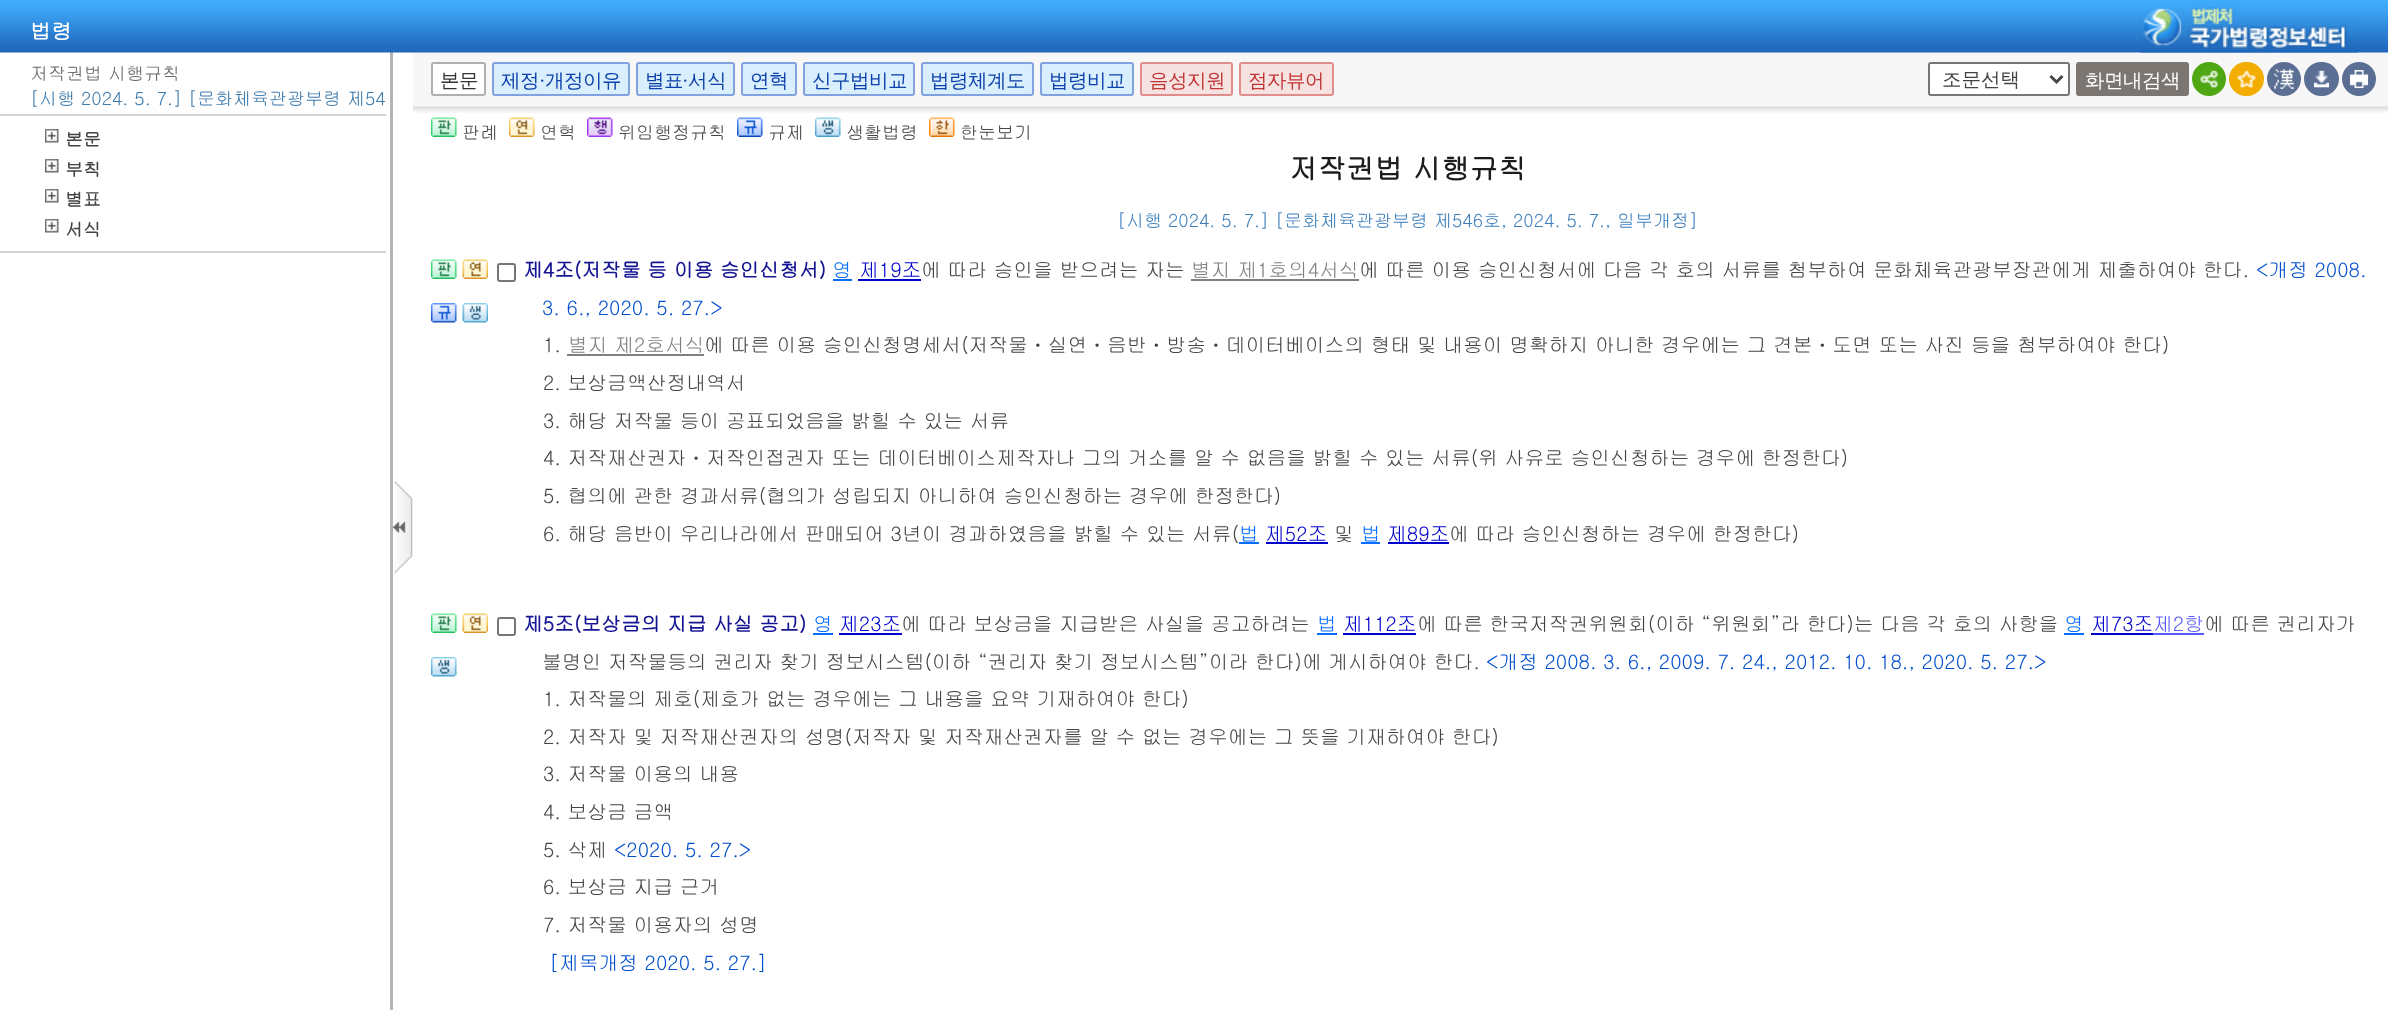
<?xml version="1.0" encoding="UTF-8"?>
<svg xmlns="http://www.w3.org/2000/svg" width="2388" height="1010">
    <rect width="100%" height="100%" fill="#FFFFFF"/>
    <rect x="413" y="52" width="1975" height="61" fill="#F7F7F7"/>
    <rect x="390" y="51" width="3" height="959" fill="#B4B4B4"/>
    <image x="0" y="0" width="2388" height="53" href="img_01.png"/>
    <text x="30" y="39" font-family="Gulim" font-size="21" font-weight="700" fill="#FFFFFF">법령</text>
    <image x="2140" y="7" width="218" height="46" href="img_02.png"/>
    <rect x="0" y="251" width="386" height="2" fill="#D4D4D4"/>
    <text x="30" y="80" font-family="Gulim" font-size="18" fill="#666666">저작권법 시행규칙</text>
    <text x="30" y="105" font-family="Gulim" font-size="18" fill="#3C7AAC">[시행 2024. 5. 7.] [문화체육관광부령 제54</text>
    <rect x="0" y="114" width="386" height="2" fill="#D4D4D4"/>
    <image x="45" y="129" width="14" height="14" href="img_03.png"/>
    <text x="65" y="146" font-family="Gulim" font-size="18" font-weight="700" fill="#444444">본문</text>
    <image x="45" y="159" width="14" height="14" href="img_03.png"/>
    <text x="65" y="176" font-family="Gulim" font-size="18" font-weight="700" fill="#444444">부칙</text>
    <image x="45" y="189" width="14" height="14" href="img_03.png"/>
    <text x="65" y="206" font-family="Gulim" font-size="18" font-weight="700" fill="#444444">별표</text>
    <image x="45" y="219" width="14" height="14" href="img_03.png"/>
    <text x="65" y="236" font-family="Gulim" font-size="18" font-weight="700" fill="#444444">서식</text>
    <image x="413" y="106" width="1975" height="6" href="img_04.png"/>
    <rect x="432" y="63" width="53" height="32" rx="2" fill="#FFFFFF" stroke="#AFAFAF" stroke-width="2"/>
    <text x="440" y="87" font-family="WenQuanYi Zen Hei" font-size="19.5" font-weight="500" letter-spacing="-0.5" fill="#333333">본문</text>
    <rect x="493" y="63" width="136" height="32" rx="2" fill="#D9EFFD" stroke="#81A2DF" stroke-width="2"/>
    <text x="501" y="87" font-family="WenQuanYi Zen Hei" font-size="19.5" font-weight="500" letter-spacing="-0.5" fill="#0D41AB">제정</text>
    <text x="539" y="87" font-family="Liberation Serif" font-size="19.5" letter-spacing="-0.5" fill="#0D41AB">·</text>
    <text x="545" y="87" font-family="WenQuanYi Zen Hei" font-size="19.5" font-weight="500" letter-spacing="-0.5" fill="#0D41AB">개정이유</text>
    <rect x="637" y="63" width="97" height="32" rx="2" fill="#D9EFFD" stroke="#81A2DF" stroke-width="2"/>
    <text x="645" y="87" font-family="WenQuanYi Zen Hei" font-size="19.5" font-weight="500" letter-spacing="-0.5" fill="#0D41AB">별표</text>
    <text x="682" y="87" font-family="Liberation Serif" font-size="19.5" letter-spacing="-0.5" fill="#0D41AB">·</text>
    <text x="688" y="87" font-family="WenQuanYi Zen Hei" font-size="19.5" font-weight="500" letter-spacing="-0.5" fill="#0D41AB">서식</text>
    <rect x="742" y="63" width="54" height="32" rx="2" fill="#D9EFFD" stroke="#81A2DF" stroke-width="2"/>
    <text x="750" y="87" font-family="WenQuanYi Zen Hei" font-size="19.5" font-weight="500" letter-spacing="-0.5" fill="#0D41AB">연혁</text>
    <rect x="804" y="63" width="110" height="32" rx="2" fill="#D9EFFD" stroke="#81A2DF" stroke-width="2"/>
    <text x="812" y="87" font-family="WenQuanYi Zen Hei" font-size="19.5" font-weight="500" letter-spacing="-0.5" fill="#0D41AB">신구법비교</text>
    <rect x="922" y="63" width="111" height="32" rx="2" fill="#D9EFFD" stroke="#81A2DF" stroke-width="2"/>
    <text x="930" y="87" font-family="WenQuanYi Zen Hei" font-size="19.5" font-weight="500" letter-spacing="-0.5" fill="#0D41AB">법령체계도</text>
    <rect x="1041" y="63" width="92" height="32" rx="2" fill="#D9EFFD" stroke="#81A2DF" stroke-width="2"/>
    <text x="1049" y="87" font-family="WenQuanYi Zen Hei" font-size="19.5" font-weight="500" letter-spacing="-0.5" fill="#0D41AB">법령비교</text>
    <rect x="1141" y="63" width="91" height="32" rx="2" fill="#F7E2E2" stroke="#E28D8D" stroke-width="2"/>
    <text x="1149" y="87" font-family="WenQuanYi Zen Hei" font-size="19.5" font-weight="500" letter-spacing="-0.5" fill="#C13535">음성지원</text>
    <rect x="1240" y="63" width="93" height="32" rx="2" fill="#F7E2E2" stroke="#E28D8D" stroke-width="2"/>
    <text x="1248" y="87" font-family="WenQuanYi Zen Hei" font-size="19.5" font-weight="500" letter-spacing="-0.5" fill="#C13535">점자뷰어</text>
    <rect x="1929" y="63" width="140" height="32" rx="2" fill="#FFFFFF" stroke="#767676" stroke-width="2"/>
    <path d="M 2050.5 76 L 2056.5 82 L 2062.5 76" fill="none" stroke="#444444" stroke-width="3"/>
    <text x="1942" y="86" font-family="WenQuanYi Zen Hei" font-size="19.5" font-weight="500" fill="#444444">조문선택</text>
    <rect x="2077" y="63" width="111" height="32" rx="2" fill="#7B7671" stroke="#7B7671" stroke-width="2"/>
    <text x="2085" y="87" font-family="WenQuanYi Zen Hei" font-size="19.5" font-weight="500" letter-spacing="-0.5" fill="#FFFFFF">화면내검색</text>
    <circle cx="2209" cy="79" r="17" fill="#4EA713"/>
    <image x="2200" y="70" width="19" height="18" href="img_05.png"/>
    <rect x="2229" y="62" width="35" height="34" rx="17" fill="#F3AC00"/>
    <image x="2237" y="70" width="19" height="18" href="img_06.png"/>
    <circle cx="2284" cy="79" r="17" fill="#5B6E93"/>
    <image x="2274" y="69" width="20" height="20" href="img_07.png"/>
    <rect x="2304" y="62" width="35" height="34" rx="17" fill="#5B6E93"/>
    <image x="2314" y="70" width="16" height="18" href="img_08.png"/>
    <circle cx="2359" cy="79" r="17" fill="#5B6E93"/>
    <image x="2350" y="70" width="19" height="19" href="img_09.png"/>
    <image x="431" y="117" width="26" height="20" href="img_10.png"/>
    <text x="462" y="139" font-family="Gulim" font-size="18" fill="#444444">판례</text>
    <image x="509" y="117" width="26" height="20" href="img_11.png"/>
    <text x="540" y="139" font-family="Gulim" font-size="18" fill="#444444">연혁</text>
    <image x="587" y="117" width="26" height="20" href="img_12.png"/>
    <text x="618" y="139" font-family="Gulim" font-size="18" fill="#444444">위임행정규칙</text>
    <image x="737" y="117" width="26" height="20" href="img_13.png"/>
    <text x="768" y="139" font-family="Gulim" font-size="18" fill="#444444">규제</text>
    <image x="815" y="117" width="26" height="20" href="img_14.png"/>
    <text x="846" y="139" font-family="Gulim" font-size="18" fill="#444444">생활법령</text>
    <image x="929" y="117" width="26" height="20" href="img_15.png"/>
    <text x="960" y="139" font-family="Gulim" font-size="18" fill="#444444">한눈보기</text>
    <text x="1289" y="179" font-family="Gulim" font-size="28.5" font-weight="700" fill="#1C1C1C">저작권법 시행규칙</text>
    <text x="1117" y="227" font-family="Gulim" font-size="18" fill="#3C7FBC">[시행 2024. 5. 7.] [문화체육관광부령 제546호, 2024. 5. 7., 일부개정]</text>
    <image x="431" y="259" width="26" height="20" href="img_10.png"/>
    <image x="462" y="259" width="26" height="20" href="img_16.png"/>
    <image x="431" y="303" width="26" height="20" href="img_17.png"/>
    <image x="462" y="303" width="26" height="20" href="img_18.png"/>
    <rect x="498" y="264" width="17" height="17" rx="2" fill="none" stroke="#767676" stroke-width="2"/>
    <text x="523" y="277" font-family="Gulim" font-size="19.8" font-weight="700" fill="#151594">제4조(저작물 등 이용 승인신청서)</text>
    <text x="832" y="277" font-family="Gulim" font-size="19.8" fill="#086DFF">영</text>
    <rect x="833" y="279" width="19" height="2" fill="#086DFF"/>
    <text x="859" y="277" font-family="Gulim" font-size="19.8" fill="#0000CD">제19조</text>
    <rect x="858" y="279" width="63" height="2" fill="#0000CD"/>
    <text x="921" y="277" font-family="Gulim" font-size="19.8" fill="#444444">에 따라 승인을 받으려는 자는</text>
    <text x="1191" y="277" font-family="Gulim" font-size="19.8" fill="#808080">별지 제1호의4서식</text>
    <rect x="1191" y="279" width="168" height="2" fill="#808080"/>
    <text x="1359" y="277" font-family="Gulim" font-size="19.8" fill="#444444">에 따른 이용 승인신청서에 다음 각 호의 서류를 첨부하여 문화체육관광부장관에게 제출하여야 한다.</text>
    <text x="2256" y="277" font-family="Gulim" font-size="19.8" fill="#024FCE">&lt;개정 2008.</text>
    <text x="542" y="315" font-family="Gulim" font-size="19.8" fill="#024FCE">3. 6., 2020. 5. 27.&gt;</text>
    <text x="543" y="352" font-family="Gulim" font-size="19.8" fill="#444444">1.</text>
    <text x="568" y="352" font-family="Gulim" font-size="19.8" fill="#808080">별지 제2호서식</text>
    <rect x="567" y="354" width="137" height="2" fill="#808080"/>
    <text x="704" y="352" font-family="Gulim" font-size="19.8" fill="#444444">에 따른 이용 승인신청명세서(저작물ㆍ실연ㆍ음반ㆍ방송ㆍ데이터베이스의 형태 및 내용이 명확하지 아니한 경우에는 그 견본ㆍ도면 또는 사진 등을 첨부하여야 한다)</text>
    <text font-family="Gulim" font-size="19.8" fill="#444444">
        <tspan x="543" y="390">2. 보상금액산정내역서</tspan>
        <tspan x="543" y="428">3. 해당 저작물 등이 공표되었음을 밝힐 수 있는 서류</tspan>
        <tspan x="543" y="465">4. 저작재산권자ㆍ저작인접권자 또는 데이터베이스제작자나 그의 거소를 알 수 없음을 밝힐 수 있는 서류(위 사유로 승인신청하는 경우에 한정한다)</tspan>
        <tspan x="543" y="503">5. 협의에 관한 경과서류(협의가 성립되지 아니하여 승인신청하는 경우에 한정한다)</tspan>
        <tspan x="543" y="541">6. 해당 음반이 우리나라에서 판매되어 3년이 경과하였음을 밝힐 수 있는 서류(</tspan>
    </text>
    <text x="1239" y="541" font-family="Gulim" font-size="19.8" fill="#086DFF">법</text>
    <rect x="1239" y="542" width="20" height="2" fill="#086DFF"/>
    <text x="1265" y="541" font-family="Gulim" font-size="19.8" fill="#0000CD">제52조</text>
    <rect x="1266" y="542" width="62" height="2" fill="#0000CD"/>
    <text x="1334" y="541" font-family="Gulim" font-size="19.8" fill="#444444">및</text>
    <text x="1361" y="541" font-family="Gulim" font-size="19.8" fill="#086DFF">법</text>
    <rect x="1361" y="542" width="19" height="2" fill="#086DFF"/>
    <text x="1387" y="541" font-family="Gulim" font-size="19.8" fill="#0000CD">제89조</text>
    <rect x="1388" y="542" width="61" height="2" fill="#0000CD"/>
    <text x="1449" y="541" font-family="Gulim" font-size="19.8" fill="#444444">에 따라 승인신청하는 경우에 한정한다)</text>
    <image x="431" y="613" width="26" height="20" href="img_10.png"/>
    <image x="462" y="613" width="26" height="20" href="img_16.png"/>
    <image x="431" y="657" width="26" height="20" href="img_19.png"/>
    <rect x="498" y="618" width="17" height="17" rx="2" fill="none" stroke="#767676" stroke-width="2"/>
    <text x="523" y="631" font-family="Gulim" font-size="19.8" font-weight="700" fill="#151594">제5조(보상금의 지급 사실 공고)</text>
    <text x="813" y="631" font-family="Gulim" font-size="19.8" fill="#086DFF">영</text>
    <rect x="813" y="633" width="20" height="2" fill="#086DFF"/>
    <text x="839" y="631" font-family="Gulim" font-size="19.8" fill="#0000CD">제23조</text>
    <rect x="839" y="633" width="63" height="2" fill="#0000CD"/>
    <text x="901" y="631" font-family="Gulim" font-size="19.8" fill="#444444">에 따라 보상금을 지급받은 사실을 공고하려는</text>
    <text x="1317" y="631" font-family="Gulim" font-size="19.8" fill="#086DFF">법</text>
    <rect x="1317" y="633" width="20" height="2" fill="#086DFF"/>
    <text x="1343" y="631" font-family="Gulim" font-size="19.8" fill="#0000CD">제112조</text>
    <rect x="1343" y="633" width="73" height="2" fill="#0000CD"/>
    <text x="1417" y="631" font-family="Gulim" font-size="19.8" fill="#444444">에 따른 한국저작권위원회(이하 “위원회”라 한다)는 다음 각 호의 사항을</text>
    <text x="2064" y="631" font-family="Gulim" font-size="19.8" fill="#086DFF">영</text>
    <rect x="2064" y="633" width="20" height="2" fill="#086DFF"/>
    <text x="2091" y="631" font-family="Gulim" font-size="19.8" fill="#0000CD">제73조</text>
    <rect x="2091" y="633" width="62" height="2" fill="#0000CD"/>
    <text x="2153" y="631" font-family="Gulim" font-size="19.8" fill="#5A5AFF">제2항</text>
    <rect x="2153" y="633" width="51" height="2" fill="#5A5AFF"/>
    <text x="2204" y="631" font-family="Gulim" font-size="19.8" fill="#444444">에 따른 권리자가</text>
    <text x="542" y="669" font-family="Gulim" font-size="19.8" fill="#444444">불명인 저작물등의 권리자 찾기 정보시스템(이하 “권리자 찾기 정보시스템”이라 한다)에 게시하여야 한다.</text>
    <text x="1486" y="669" font-family="Gulim" font-size="19.8" fill="#024FCE">&lt;개정 2008. 3. 6., 2009. 7. 24., 2012. 10. 18., 2020. 5. 27.&gt;</text>
    <text font-family="Gulim" font-size="19.8" fill="#444444">
        <tspan x="543" y="706">1. 저작물의 제호(제호가 없는 경우에는 그 내용을 요약 기재하여야 한다)</tspan>
        <tspan x="543" y="744">2. 저작자 및 저작재산권자의 성명(저작자 및 저작재산권자를 알 수 없는 경우에는 그 뜻을 기재하여야 한다)</tspan>
        <tspan x="543" y="781">3. 저작물 이용의 내용</tspan>
        <tspan x="543" y="819">4. 보상금 금액</tspan>
        <tspan x="543" y="857">5. 삭제</tspan>
    </text>
    <text x="614" y="857" font-family="Gulim" font-size="19.8" fill="#024FCE">&lt;2020. 5. 27.&gt;</text>
    <text font-family="Gulim" font-size="19.8" fill="#444444">
        <tspan x="543" y="894">6. 보상금 지급 근거</tspan>
        <tspan x="543" y="932">7. 저작물 이용자의 성명</tspan>
    </text>
    <text x="549" y="970" font-family="Gulim" font-size="19.8" fill="#024FCE">[제목개정 2020. 5. 27.]</text>
    <image x="393" y="481" width="20" height="93" href="img_20.png"/>
</svg>
